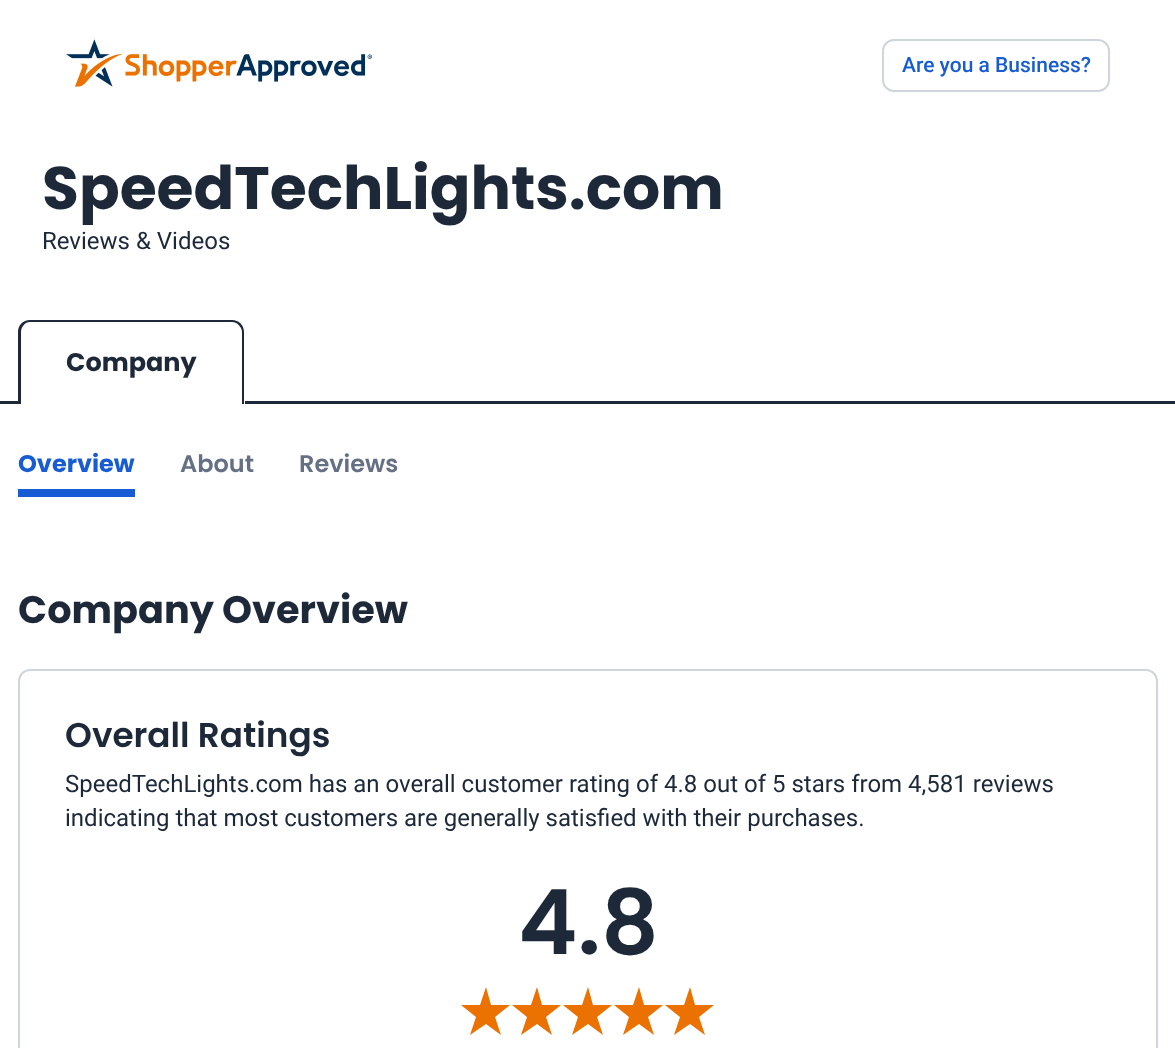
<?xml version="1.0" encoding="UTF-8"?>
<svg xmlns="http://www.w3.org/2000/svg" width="1175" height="1048">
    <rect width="100%" height="100%" fill="#FFFFFF"/>
    <image x="66" y="39" width="306" height="48" href="img_01.png"/>
    <rect x="883" y="40" width="226" height="51" rx="11" fill="none" stroke="#D0D5DD" stroke-width="2"/>
    <text x="902" y="72" font-family="Roboto" font-size="21" font-weight="500" fill="#175CD3">Are you a Business?</text>
    <text x="42" y="209" font-family="Poppins" font-size="60" font-weight="700" fill="#1D2939">SpeedTechLights.com</text>
    <text x="42" y="249" font-family="Roboto" font-size="24" fill="#1D2939">Reviews &amp; Videos</text>
    <rect x="0" y="401" width="1175" height="3" fill="#1D2939"/>
    <path d="M 30 320 H 233 C 239.5 320 245 325.5 245 332 V 404 H 18 V 332 C 18 325.5 23.5 320 30 320 Z" fill="#FFFFFF"/>
    <path d="M 30 320 H 232 C 239 320 244 325 244 332 V 404 H 18 V 332 C 18 325 23 320 30 320 Z M 30 322 H 232 C 237 322 242 327 242 332 V 404 H 21 V 332 C 21 327 25 322 30 322 Z" fill="#1D2939" fill-rule="evenodd"/>
    <text x="66" y="371" font-family="Poppins" font-size="25.5" font-weight="700" fill="#1D2939">Company</text>
    <text x="18" y="472" font-family="Poppins" font-size="24" font-weight="700" fill="#175CD3">Overview</text>
    <rect x="18" y="489" width="117" height="8" fill="#175CD3"/>
    <text x="180" y="472" font-family="Poppins" font-size="24" font-weight="600" fill="#667085">About</text>
    <text x="299" y="472" font-family="Poppins" font-size="24" font-weight="600" fill="#667085">Reviews</text>
    <text x="18" y="623" font-family="Poppins" font-size="38.25" font-weight="700" fill="#1D2939">Company Overview</text>
    <rect x="19" y="670" width="1138" height="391" rx="11" fill="none" stroke="#D0D5DD" stroke-width="2"/>
    <text x="65" y="747" font-family="Poppins" font-size="34.25" font-weight="600" fill="#1D2939">Overall Ratings</text>
    <text font-family="Roboto" font-size="24" fill="#1D2939">
        <tspan x="65" y="792">SpeedTechLights.com has an overall customer rating of 4.8 out of 5 stars from 4,581 reviews</tspan>
        <tspan x="65" y="826">indicating that most customers are generally satisfied with their purchases.</tspan>
    </text>
    <text x="518" y="954" font-family="Poppins" font-size="90" font-weight="600" fill="#1D2939">4.8</text>
    <path d="M 486 987 L 491 1005 H 510 L 495 1017 L 501 1035 L 486 1024 L 470 1035 L 476 1017 L 461 1005 H 480 Z" fill="#EB7100"/>
    <path d="M 537 987 L 542 1005 H 561 L 546 1017 L 552 1035 L 537 1024 L 521 1035 L 527 1017 L 512 1005 H 531 Z" fill="#EB7100"/>
    <path d="M 588 987 L 593 1005 H 612 L 597 1017 L 603 1035 L 588 1024 L 572 1035 L 578 1017 L 563 1005 H 582 Z" fill="#EB7100"/>
    <path d="M 639 987 L 644 1005 H 663 L 648 1017 L 654 1035 L 639 1024 L 623 1035 L 629 1017 L 614 1005 H 633 Z" fill="#EB7100"/>
    <path d="M 690 987 L 695 1005 H 714 L 699 1017 L 705 1035 L 690 1024 L 674 1035 L 680 1017 L 665 1005 H 684 Z" fill="#EB7100"/>
</svg>
